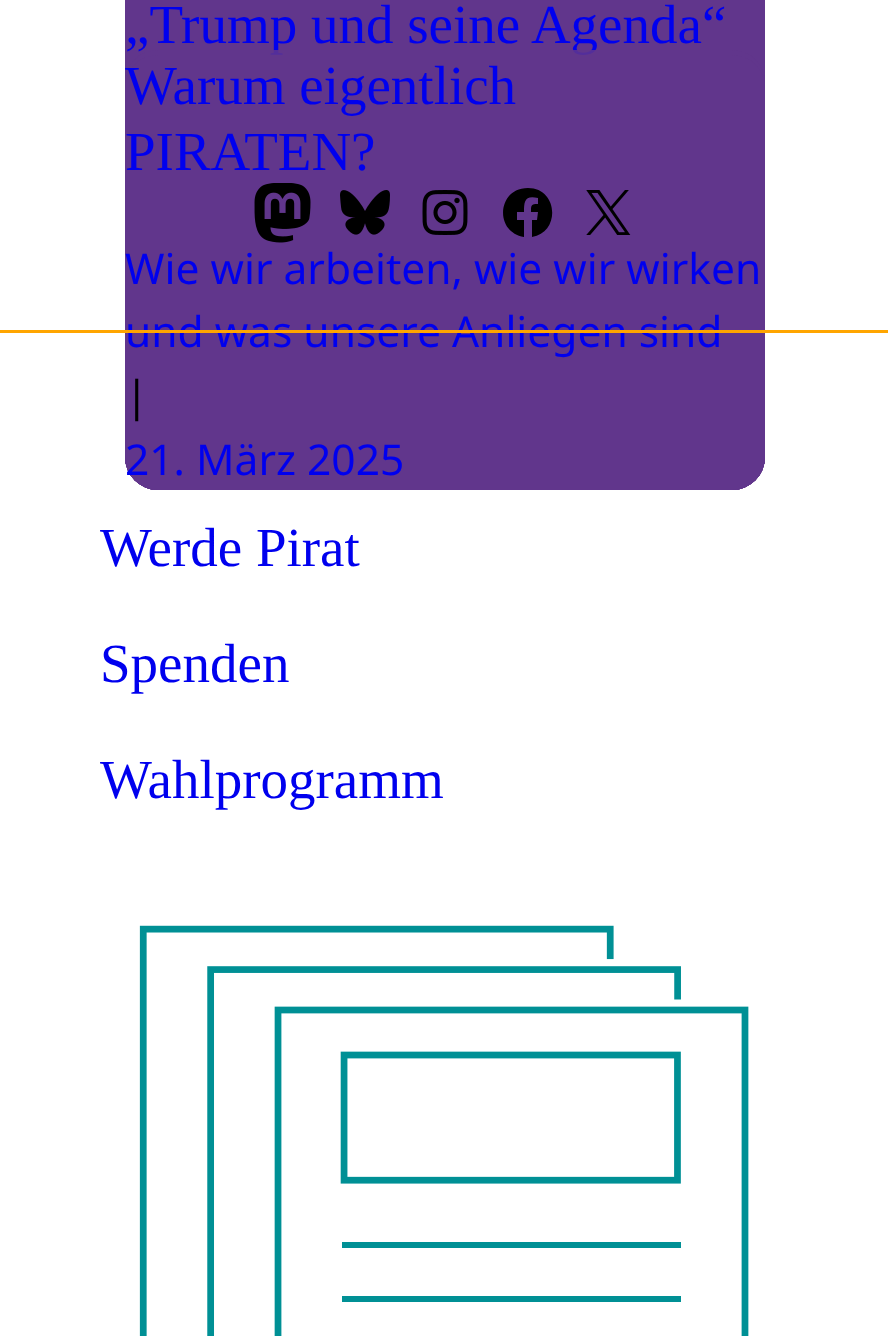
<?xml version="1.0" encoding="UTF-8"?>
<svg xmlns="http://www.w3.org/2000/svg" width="888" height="1336">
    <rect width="100%" height="100%" fill="#FFFFFF"/>
    <rect x="125" y="115" width="640" height="375" rx="33" fill="#62368C" fill-opacity="0.85"/>
    <rect x="125" y="-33" width="640" height="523" rx="33" fill="#62368C" fill-opacity="0.85"/>
    <rect x="125" y="248" width="640" height="242" rx="33" fill="#62368C" fill-opacity="0.85"/>
    <rect x="125" y="183" width="640" height="307" rx="33" fill="#62368C" fill-opacity="0.85"/>
    <rect x="125" y="-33" width="640" height="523" rx="33" fill="#62368C" fill-opacity="0.85"/>
    <rect x="125" y="-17" width="640" height="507" rx="33" fill="#62368C" fill-opacity="0.85"/>
    <rect x="125" y="183" width="640" height="307" rx="33" fill="#62368C" fill-opacity="0.85"/>
    <rect x="125" y="-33" width="640" height="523" rx="33" fill="#62368C" fill-opacity="0.85"/>
    <text x="125" y="43" font-family="Liberation Serif" font-size="55" fill="#0000EE">„Trump und seine Agenda“</text>
    <rect x="125" y="50" width="640" height="440" rx="33" fill="#62368C" fill-opacity="0.85"/>
    <rect x="125" y="55" width="640" height="435" rx="33" fill="#62368C" fill-opacity="0.85"/>
    <text font-family="Liberation Serif" font-size="55" fill="#0000EE">
        <tspan x="125" y="104">Warum eigentlich</tspan>
        <tspan x="125" y="170">PIRATEN?</tspan>
    </text>
    <text font-family="Noto Sans" font-size="42.5" fill="#0000EE">
        <tspan x="125" y="284">Wie wir arbeiten, wie wir wirken</tspan>
        <tspan x="125" y="347">und was unsere Anliegen sind</tspan>
    </text>
    <text x="125" y="411" font-family="Noto Sans" font-size="42.5" fill="#000000">|</text>
    <text x="125" y="475" font-family="Noto Sans" font-size="42.5" fill="#0000EE">21. März 2025</text>
    <text x="100" y="566" font-family="Liberation Serif" font-size="55" fill="#0000EE">Werde Pirat</text>
    <text x="100" y="682" font-family="Liberation Serif" font-size="55" fill="#0000EE">Spenden</text>
    <text x="100" y="798" font-family="Liberation Serif" font-size="55" fill="#0000EE">Wahlprogramm</text>
    <image x="139" y="925" width="610" height="411" href="img_01.png"/>
    <rect x="0" y="330" width="888" height="3" fill="#FFA500"/>
    <image x="254" y="183" width="57" height="60" href="img_02.png"/>
    <image x="340" y="190" width="50" height="45" href="img_03.png"/>
    <image x="422" y="190" width="46" height="45" href="img_04.png"/>
    <path d="M 528 188 C 497 188 494 232 524 237 V 220 H 517 V 212 H 524 C 524 201 525 195 538 198 V 204 C 531 204 531 205 531 212 H 538 L 537 220 H 532 V 237 C 561 232 558 188 528 188 Z" fill="#000000"/>
    <image x="586" y="190" width="45" height="45" href="img_05.png"/>
</svg>
